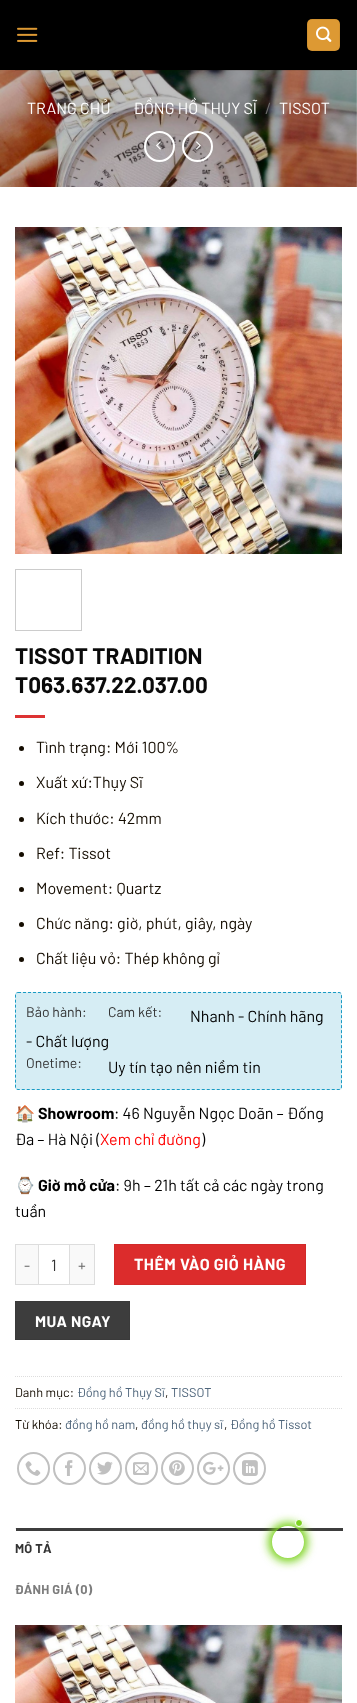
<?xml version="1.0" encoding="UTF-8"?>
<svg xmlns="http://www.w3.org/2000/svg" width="357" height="1703">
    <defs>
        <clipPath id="clip1"><path d="M 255 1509 H 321 V 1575 H 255 Z M 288 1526 C 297 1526 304 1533 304 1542 C 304 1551 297 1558 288 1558 C 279 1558 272 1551 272 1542 C 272 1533 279 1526 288 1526 Z" clip-rule="evenodd"/></clipPath>
        <filter id="blur1" x="-50%" y="-200%" width="200%" height="500%"><feGaussianBlur stdDeviation="4"/></filter>
    </defs>
    <rect width="100%" height="100%" fill="#FFFFFF"/>
    <rect x="0" y="0" width="357" height="70" fill="#000000"/>
    <image x="17" y="27" width="21" height="15" href="img_01.png"/>
    <rect x="307" y="19" width="33" height="32" rx="5" fill="#DD9933"/>
    <rect x="307.5" y="19.5" width="32" height="31" fill="none" stroke="#000000" stroke-opacity="0.05"/>
    <image x="316" y="26" width="16" height="16" href="img_02.png"/>
    <image x="0" y="70" width="357" height="117" href="img_03.png"/>
    <rect x="15" y="70" width="327" height="1" fill="#140C00" fill-opacity="0.1"/>
    <text x="27" y="114" font-family="Barlow" font-size="16" fill="#FFFFFF">TRANG CHỦ</text>
    <text x="133" y="114" font-family="Barlow" font-size="16" fill="#FFFFFF">ĐỒNG HỒ THỤY SĨ</text>
    <text x="265" y="114" font-family="Barlow" font-size="16" fill="#6F6D6D">/</text>
    <text x="279" y="114" font-family="Barlow" font-size="16" fill="#FFFFFF">TISSOT</text>
    <circle cx="159.5" cy="146.5" r="14.5" fill="none" stroke="#FFFFFF" stroke-width="2"/>
    <image x="156" y="141" width="5" height="9" href="img_04.png"/>
    <circle cx="197.5" cy="146.5" r="14.5" fill="none" stroke="#FFFFFF" stroke-width="2"/>
    <image x="196" y="141" width="5" height="9" href="img_05.png"/>
    <image x="15" y="227" width="327" height="327" href="img_06.png"/>
    <rect x="15.5" y="569.5" width="66" height="61" fill="none" stroke="#CCCCCC"/>
    <text font-family="Barlow" font-size="22.5" font-weight="700" fill="#0A0A0A">
        <tspan x="15" y="664">TISSOT TRADITION</tspan>
        <tspan x="15" y="693">T063.637.22.037.00</tspan>
    </text>
    <rect x="15" y="715" width="30" height="3" fill="#DD3333"/>
    <circle cx="21.5" cy="748.5" r="2.5" fill="#140C00"/>
    <text x="36" y="753" font-family="Barlow" font-size="16" fill="#140C00">Tình trạng: Mới 100%</text>
    <circle cx="21.5" cy="783.5" r="2.5" fill="#140C00"/>
    <text x="36" y="788" font-family="Barlow" font-size="16" fill="#140C00">Xuất xứ:Thụy Sĩ</text>
    <circle cx="21.5" cy="819.5" r="2.5" fill="#140C00"/>
    <text x="36" y="824" font-family="Barlow" font-size="16" fill="#140C00">Kích thước: 42mm</text>
    <circle cx="21.5" cy="854.5" r="2.5" fill="#140C00"/>
    <text x="36" y="859" font-family="Barlow" font-size="16" fill="#140C00">Ref: Tissot</text>
    <circle cx="21.5" cy="889.5" r="2.5" fill="#140C00"/>
    <text x="36" y="894" font-family="Barlow" font-size="16" fill="#140C00">Movement: Quartz</text>
    <circle cx="21.5" cy="924.5" r="2.5" fill="#140C00"/>
    <text x="36" y="929" font-family="Barlow" font-size="16" fill="#140C00">Chức năng: giờ, phút, giây, ngày</text>
    <circle cx="21.5" cy="959.5" r="2.5" fill="#140C00"/>
    <text x="36" y="964" font-family="Barlow" font-size="16" fill="#140C00">Chất liệu vỏ: Thép không gỉ</text>
    <rect x="15" y="992" width="327" height="98" rx="3" fill="#D6EDF4"/>
    <path d="M 18 992.5 H 339 C 340.5 992.5 341.5 993.5 341.5 995 V 1087 C 341.5 1088.5 340.5 1089.5 339 1089.5 H 18 C 16.5 1089.5 15.5 1088.5 15.5 1087 V 995 C 15.5 993.5 16.5 992.5 18 992.5 Z" fill="none" stroke="#199BC4" stroke-dasharray="3 2"/>
    <text x="108" y="1017" font-family="Barlow" font-size="14" fill="#333333">Cam kết:</text>
    <text x="190" y="1022" font-family="Barlow" font-size="16" fill="#000000">Nhanh - Chính hãng</text>
    <text x="26" y="1047" font-family="Barlow" font-size="16" fill="#000000">- Chất lượng</text>
    <text x="26" y="1017" font-family="Barlow" font-size="14" fill="#333333">Bảo hành:</text>
    <text x="26" y="1068" font-family="Barlow" font-size="14" fill="#333333">Onetime:</text>
    <text x="108" y="1073" font-family="Barlow" font-size="16" fill="#000000">Uy tín tạo nên niềm tin</text>
    <text x="15" y="1119" font-family="Noto Color Emoji" font-size="16" font-weight="700" fill="#000000">🏠</text>
    <text x="38" y="1119" font-family="Barlow" font-size="16" font-weight="700" fill="#000000">Showroom</text>
    <text x="114" y="1119" font-family="Barlow" font-size="16" fill="#000000">: 46 Nguyễn Ngọc Doãn – Đống</text>
    <text x="15" y="1145" font-family="Barlow" font-size="16" fill="#000000">Đa – Hà Nội (</text>
    <text x="100" y="1145" font-family="Barlow" font-size="16" fill="#FF0000">Xem chỉ đường</text>
    <text x="201" y="1145" font-family="Barlow" font-size="16" fill="#000000">)</text>
    <text x="15" y="1191" font-family="Noto Color Emoji" font-size="16" font-weight="700" fill="#000000">⌚</text>
    <text x="38" y="1191" font-family="Barlow" font-size="16" font-weight="700" fill="#000000">Giờ mở cửa</text>
    <text x="115" y="1191" font-family="Barlow" font-size="16" fill="#000000">: 9h – 21h tất cả các ngày trong</text>
    <text x="15" y="1217" font-family="Barlow" font-size="16" fill="#000000">tuần</text>
    <rect x="16" y="1245" width="22" height="39" fill="#F9F9F9"/>
    <rect x="15" y="1244" width="23" height="1" fill="#DDDDDD"/>
    <rect x="15" y="1284" width="23" height="1" fill="#DDDDDD"/>
    <rect x="15" y="1244" width="1" height="41" fill="#DDDDDD"/>
    <text x="24" y="1271" font-family="Barlow" font-size="15.5" letter-spacing="0.5" fill="#666666">-</text>
    <rect x="38.5" y="1244.5" width="31" height="40" fill="none" stroke="#DDDDDD"/>
    <text x="51" y="1271" font-family="Barlow" font-size="16" fill="#333333">1</text>
    <rect x="70" y="1245" width="24" height="39" fill="#F9F9F9"/>
    <rect x="70" y="1244" width="25" height="1" fill="#DDDDDD"/>
    <rect x="94" y="1244" width="1" height="41" fill="#DDDDDD"/>
    <rect x="70" y="1284" width="25" height="1" fill="#DDDDDD"/>
    <text x="78" y="1271" font-family="Barlow" font-size="15.5" letter-spacing="0.5" fill="#666666">+</text>
    <rect x="114.5" y="1244.5" width="191" height="40" fill="#DC2C2C" stroke="#D12A2A"/>
    <text x="134" y="1270" font-family="Barlow" font-size="16" font-weight="700" letter-spacing="0.5" fill="#FFFFFF">THÊM VÀO GIỎ HÀNG</text>
    <rect x="15.5" y="1301.5" width="114" height="38" fill="#3D3D3D" stroke="#3A3A3A"/>
    <text x="35" y="1327" font-family="Barlow" font-size="15.5" font-weight="700" letter-spacing="0.5" fill="#FFFFFF">MUA NGAY</text>
    <path d="M 15 1376.5 H 342" fill="none" stroke="#DDDDDD" stroke-dasharray="1 1"/>
    <text x="15" y="1397" font-family="Barlow" font-size="12.75" fill="#140C00">Danh mục:</text>
    <text x="77" y="1397" font-family="Barlow" font-size="12.75" fill="#4E657B">Đồng hồ Thụy Sĩ</text>
    <text x="171" y="1397" font-family="Barlow" font-size="12.75" fill="#4E657B">TISSOT</text>
    <text x="165" y="1397" font-family="Barlow" font-size="12.75" fill="#140C00">,</text>
    <path d="M 15 1408.5 H 342" fill="none" stroke="#DDDDDD" stroke-dasharray="1 1"/>
    <text x="15" y="1429" font-family="Barlow" font-size="12.75" fill="#140C00">Từ khóa:</text>
    <text x="65" y="1429" font-family="Barlow" font-size="12.75" fill="#4E657B">đồng hồ nam</text>
    <text x="135" y="1429" font-family="Barlow" font-size="12.75" fill="#140C00">,</text>
    <text x="141" y="1429" font-family="Barlow" font-size="12.75" fill="#4E657B">đồng hồ thụy sĩ</text>
    <text x="230" y="1429" font-family="Barlow" font-size="12.75" fill="#4E657B">Đồng hồ Tissot</text>
    <text x="224" y="1429" font-family="Barlow" font-size="12.75" fill="#140C00">,</text>
    <circle cx="33.5" cy="1468.5" r="15.5" fill="none" stroke="#C0C0C0" stroke-width="2"/>
    <image x="25" y="1461" width="16" height="15" href="img_07.png"/>
    <circle cx="69.5" cy="1468.5" r="15.5" fill="none" stroke="#C0C0C0" stroke-width="2"/>
    <image x="65" y="1460" width="8" height="16" href="img_08.png"/>
    <circle cx="105.5" cy="1468.5" r="15.5" fill="none" stroke="#C0C0C0" stroke-width="2"/>
    <image x="97" y="1461" width="16" height="14" href="img_09.png"/>
    <circle cx="141.5" cy="1468.5" r="15.5" fill="none" stroke="#C0C0C0" stroke-width="2"/>
    <image x="133" y="1462" width="16" height="13" href="img_10.png"/>
    <circle cx="177.5" cy="1468.5" r="15.5" fill="none" stroke="#C0C0C0" stroke-width="2"/>
    <image x="169" y="1460" width="16" height="16" href="img_11.png"/>
    <circle cx="213.5" cy="1468.5" r="15.5" fill="none" stroke="#C0C0C0" stroke-width="2"/>
    <image x="203" y="1461" width="21" height="14" href="img_12.png"/>
    <circle cx="249.5" cy="1468.5" r="15.5" fill="none" stroke="#C0C0C0" stroke-width="2"/>
    <image x="242" y="1460" width="16" height="16" href="img_13.png"/>
    <rect x="15" y="1528" width="1" height="1" fill="#ECECEC"/>
    <rect x="16" y="1528" width="327" height="3" fill="#3D3D3D"/>
    <text x="15" y="1553" font-family="Barlow" font-size="12.75" font-weight="700" letter-spacing="0.25" fill="#333333">MÔ TẢ</text>
    <text x="15" y="1594" font-family="Barlow" font-size="12.75" font-weight="700" letter-spacing="0.25" fill="#7D7D7D">ĐÁNH GIÁ (0)</text>
    <image x="15" y="1625" width="327" height="78" href="img_14.png"/>
    <g clip-path="url(#clip1)">
        <rect x="268" y="1522" width="40" height="40" rx="20" fill="#7ED321" filter="url(#blur1)"/>
    </g>
    <circle cx="299" cy="1523" r="3.5" fill="#7ED321" stroke="#FFFFFF"/>
</svg>
